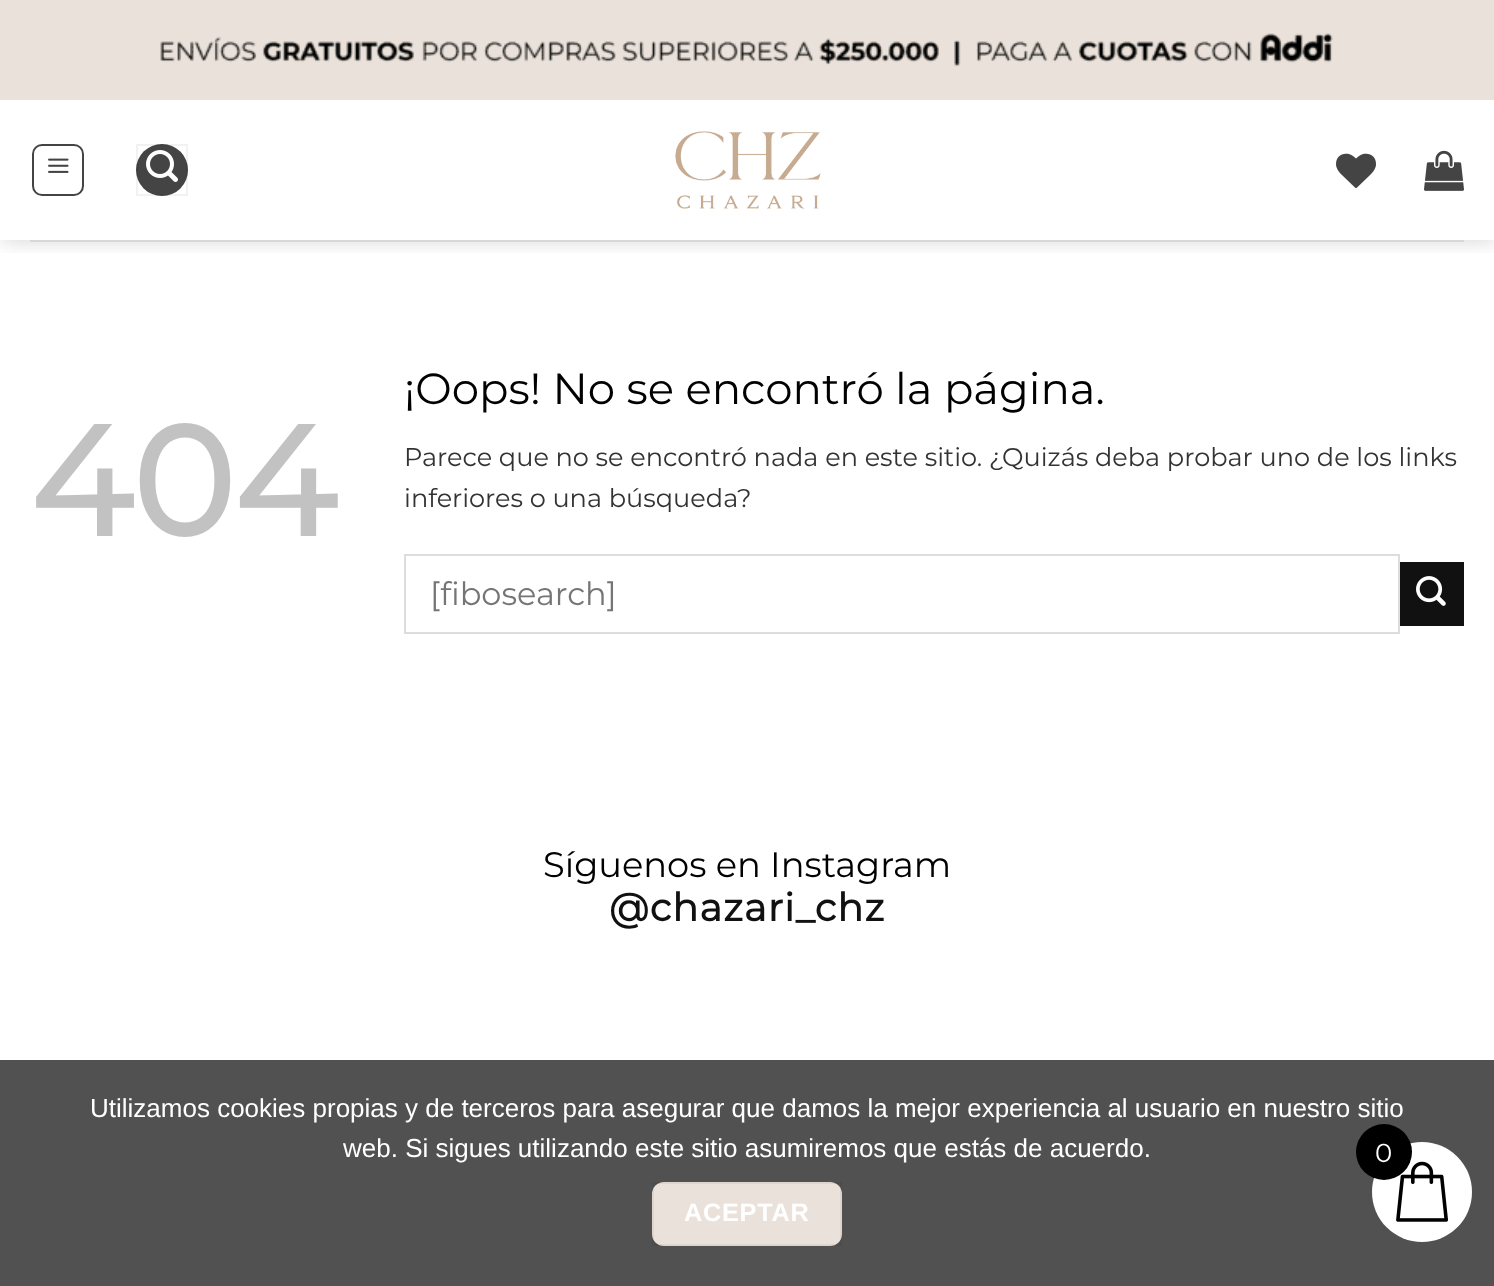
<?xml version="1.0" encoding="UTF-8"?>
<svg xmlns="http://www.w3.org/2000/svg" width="1494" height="1286">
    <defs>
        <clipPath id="clip1"><rect x="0" y="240" width="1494" height="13"/></clipPath>
        <filter id="blur1" x="-50%" y="-200%" width="200%" height="500%"><feGaussianBlur stdDeviation="10"/></filter>
    </defs>
    <rect width="100%" height="100%" fill="#FFFFFF"/>
    <g clip-path="url(#clip1)">
        <rect x="2" y="2" width="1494" height="240" fill="#000000" fill-opacity="0.15" filter="url(#blur1)"/>
    </g>
    <rect x="0" y="0" width="1494" height="100" fill="#EAE2DA"/>
    <image x="160" y="33" width="1173" height="34" href="img_01.png"/>
    <rect x="33" y="145" width="50" height="50" rx="9" fill="none" stroke="#444444" stroke-width="2"/>
    <image x="48" y="158" width="21" height="15" href="img_02.png"/>
    <circle cx="162" cy="170" r="26" fill="#444444"/>
    <rect x="137" y="145" width="50" height="50" fill="none" stroke="#000000" stroke-opacity="0.05" stroke-width="2"/>
    <image x="146" y="150" width="32" height="32" href="img_03.png"/>
    <image x="675" y="131" width="146" height="78" href="img_04.png"/>
    <image x="1336" y="153" width="40" height="35" href="img_05.png"/>
    <image x="1424" y="150" width="40" height="41" href="img_06.png"/>
    <rect x="30" y="240" width="1434" height="2" fill="#D8D8D8"/>
    <text x="30" y="536" font-family="Montserrat" font-size="154" font-weight="700" fill="#C2C2C2">404</text>
    <text x="404" y="404" font-family="Montserrat" font-size="43.5" font-weight="100" fill="#000000">¡Oops! No se encontró la página.</text>
    <text font-family="Montserrat" font-size="25.6" font-weight="100" fill="#333333">
        <tspan x="404" y="466">Parece que no se encontró nada en este sitio. ¿Quizás deba probar uno de los links</tspan>
        <tspan x="404" y="507">inferiores o una búsqueda?</tspan>
    </text>
    <rect x="405" y="555" width="994" height="78" fill="none" stroke="#DDDDDD" stroke-width="2"/>
    <text x="430" y="605" font-family="Montserrat" font-size="32" font-weight="100" fill="#757575">[fibosearch]</text>
    <rect x="1400" y="562" width="64" height="64" fill="#111111"/>
    <image x="1416" y="576" width="30" height="30" href="img_07.png"/>
    <text x="543" y="877" font-family="Montserrat" font-size="35.25" font-weight="100" fill="#000000">Síguenos en Instagram</text>
    <text x="609" y="921" font-family="Montserrat" font-size="38.5" font-weight="700" letter-spacing="1.1" fill="#111111">@chazari_chz</text>
    <rect x="0" y="1060" width="1494" height="226" fill="#515151"/>
    <text x="90" y="1117" font-family="Liberation Sans" font-size="26" fill="#FFFFFF">Utilizamos cookies propias y de terceros para asegurar que damos la mejor experiencia al usuario en nuestro sitio</text>
    <text x="343" y="1157" font-family="Liberation Sans" font-size="26" fill="#FFFFFF">web. Si sigues utilizando este sitio asumiremos que estás de acuerdo.</text>
    <rect x="652" y="1182" width="190" height="64" rx="12" fill="#EAE2DA"/>
    <rect x="653" y="1183" width="188" height="62" fill="none" stroke="#000000" stroke-opacity="0.05" stroke-width="2"/>
    <text x="684" y="1221" font-family="Liberation Sans" font-size="25.25" font-weight="700" letter-spacing="0.75" fill="#FFFFFF">ACEPTAR</text>
    <circle cx="1422" cy="1192" r="50" fill="#FFFFFF"/>
    <image x="1396" y="1161" width="52" height="61" href="img_08.png"/>
    <circle cx="1384" cy="1152" r="28" fill="#000000"/>
    <text x="1375" y="1162" font-family="Montserrat" font-size="26" font-weight="100" fill="#FFFFFF">0</text>
</svg>
